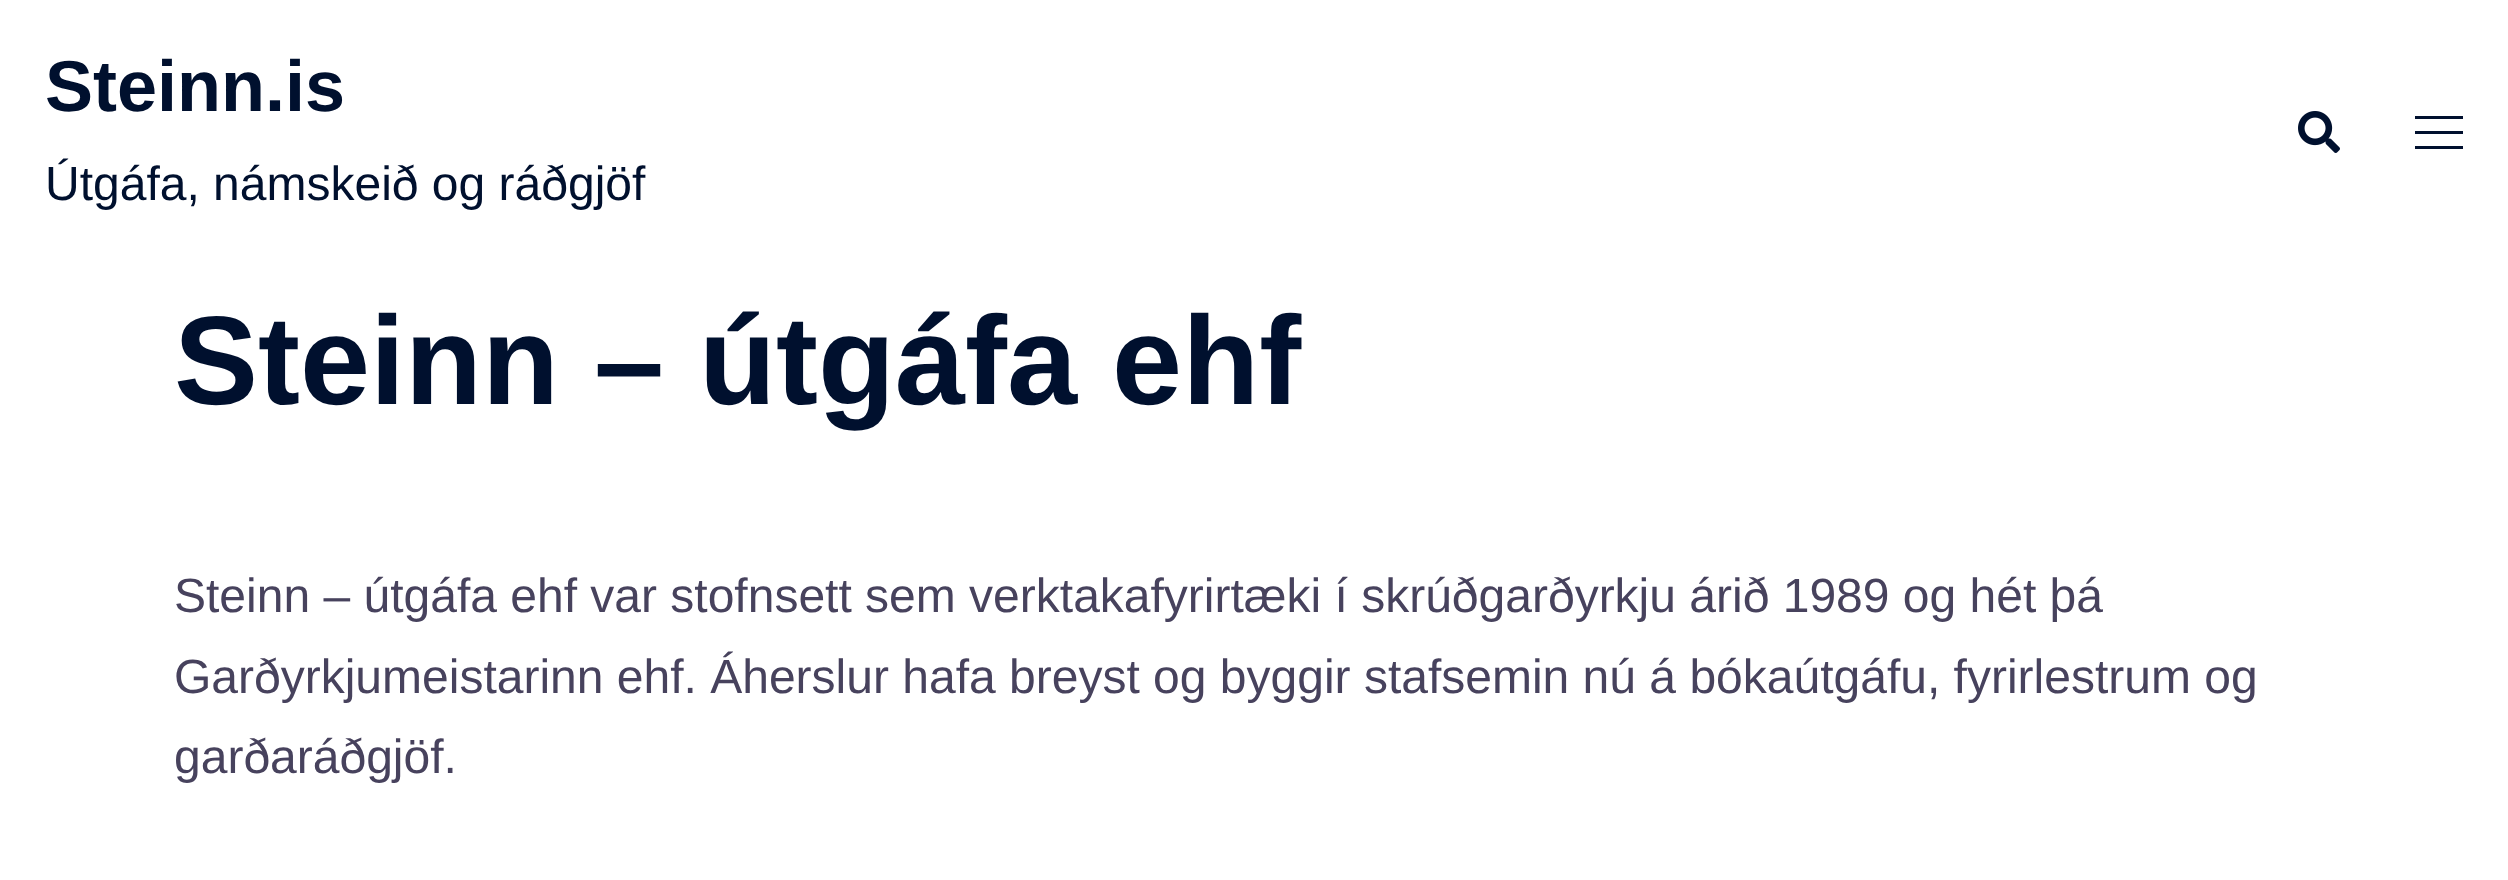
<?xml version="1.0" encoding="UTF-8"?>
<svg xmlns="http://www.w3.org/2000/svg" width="2508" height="880">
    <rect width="100%" height="100%" fill="#FFFFFF"/>
    <text x="45" y="111" font-family="Liberation Sans" font-size="72" font-weight="700" fill="#00102E">Steinn.is</text>
    <text x="45" y="200" font-family="Liberation Sans" font-size="48" fill="#00102E">Útgáfa, námskeið og ráðgjöf</text>
    <image x="2298" y="111" width="42" height="42" href="img_01.png"/>
    <rect x="2415" y="116" width="48" height="3" fill="#00102E"/>
    <rect x="2415" y="131" width="48" height="3" fill="#00102E"/>
    <rect x="2415" y="146" width="48" height="3" fill="#00102E"/>
    <text x="174" y="404" font-family="Liberation Sans" font-size="126" font-weight="700" fill="#00102E">Steinn – útgáfa ehf</text>
    <text font-family="Liberation Sans" font-size="48" fill="#47425D">
        <tspan x="174" y="612">Steinn – útgáfa ehf var stofnsett sem verktakafyrirtæki í skrúðgarðyrkju árið 1989 og hét þá</tspan>
        <tspan x="174" y="693">Garðyrkjumeistarinn ehf. Áherslur hafa breyst og byggir stafsemin nú á bókaútgáfu, fyrirlestrum og</tspan>
        <tspan x="174" y="773">garðaráðgjöf.</tspan>
    </text>
</svg>
